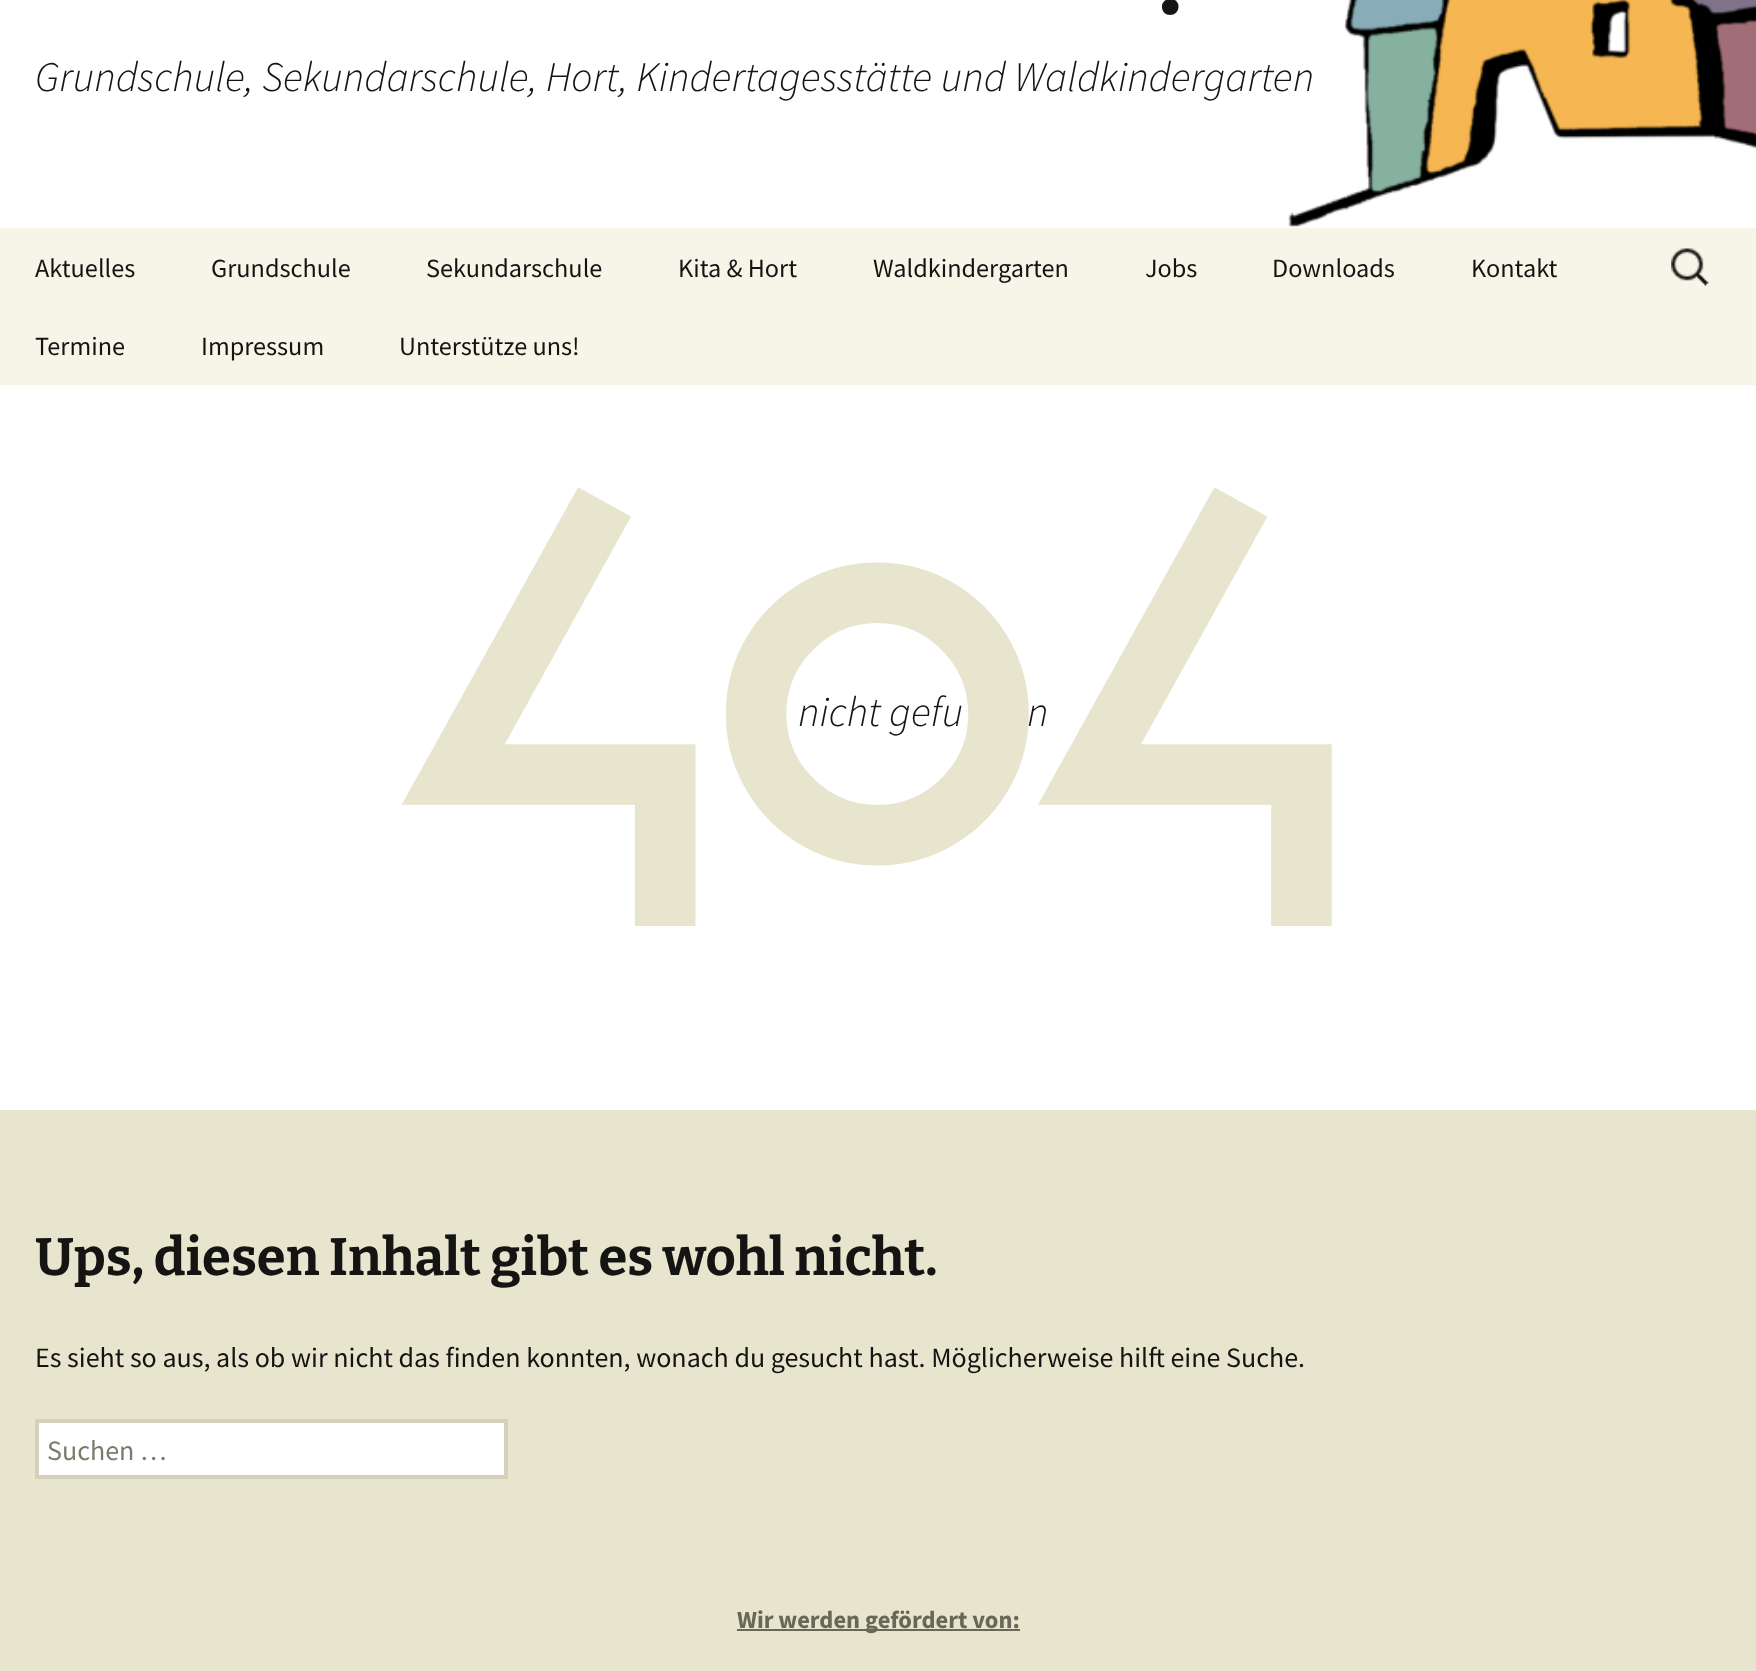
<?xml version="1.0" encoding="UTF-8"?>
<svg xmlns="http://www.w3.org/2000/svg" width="1756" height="1671">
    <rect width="100%" height="100%" fill="#FFFFFF"/>
    <image x="1288" y="0" width="468" height="227" href="img_01.png"/>
    <text x="1158" y="14" font-family="Bitter" font-size="105" font-weight="100" fill="#141412">.</text>
    <text x="35" y="91" font-family="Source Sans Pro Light" font-size="42" font-weight="300" font-style="italic" fill="#141412">Grundschule, Sekundarschule, Hort, Kindertagesstätte und Waldkindergarten</text>
    <rect x="0" y="228" width="1756" height="157" fill="#F7F5E7"/>
    <text x="35" y="277" font-family="Source Sans Pro" font-size="26.25" fill="#141412">Aktuelles</text>
    <text x="211" y="277" font-family="Source Sans Pro" font-size="26.25" fill="#141412">Grundschule</text>
    <text x="426" y="277" font-family="Source Sans Pro" font-size="26.25" fill="#141412">Sekundarschule</text>
    <text x="678" y="277" font-family="Source Sans Pro" font-size="26.25" fill="#141412">Kita &amp; Hort</text>
    <text x="873" y="277" font-family="Source Sans Pro" font-size="26.25" fill="#141412">Waldkindergarten</text>
    <text x="1145" y="277" font-family="Source Sans Pro" font-size="26.25" fill="#141412">Jobs</text>
    <text x="1272" y="277" font-family="Source Sans Pro" font-size="26.25" fill="#141412">Downloads</text>
    <text x="1471" y="277" font-family="Source Sans Pro" font-size="26.25" fill="#141412">Kontakt</text>
    <text x="35" y="355" font-family="Source Sans Pro" font-size="26.25" fill="#141412">Termine</text>
    <text x="201" y="355" font-family="Source Sans Pro" font-size="26.25" fill="#141412">Impressum</text>
    <text x="399" y="355" font-family="Source Sans Pro" font-size="26.25" fill="#141412">Unterstütze uns!</text>
    <image x="1671" y="248" width="38" height="38" href="img_02.png"/>
    <text x="798" y="726" font-family="Source Sans Pro Light" font-size="42" font-weight="300" font-style="italic" fill="#141412">nicht gefu</text>
    <text x="1027" y="726" font-family="Source Sans Pro Light" font-size="42" font-weight="300" font-style="italic" fill="#141412">n</text>
    <image x="401" y="487" width="931" height="439" href="img_03.png"/>
    <rect x="0" y="1110" width="1756" height="561" fill="#E8E5CE"/>
    <text x="35" y="1275" font-family="Bitter" font-size="52.5" font-weight="100" fill="#141412">Ups, diesen Inhalt gibt es wohl nicht.</text>
    <text x="35" y="1367" font-family="Source Sans Pro" font-size="28" fill="#141412">Es sieht so aus, als ob wir nicht das finden konnten, wonach du gesucht hast. Möglicherweise hilft eine Suche.</text>
    <rect x="37" y="1421" width="469" height="56" fill="#FFFFFF" stroke="#D4D0BA" stroke-width="4"/>
    <text x="47" y="1460" font-family="Source Sans Pro" font-size="28" fill="#7D7B6D">Suchen …</text>
    <rect x="737" y="1629" width="283" height="2" fill="#686758"/>
    <text x="737" y="1628" font-family="Source Sans Pro" font-size="24.5" font-weight="700" fill="#686758">Wir werden gefördert von:</text>
</svg>
